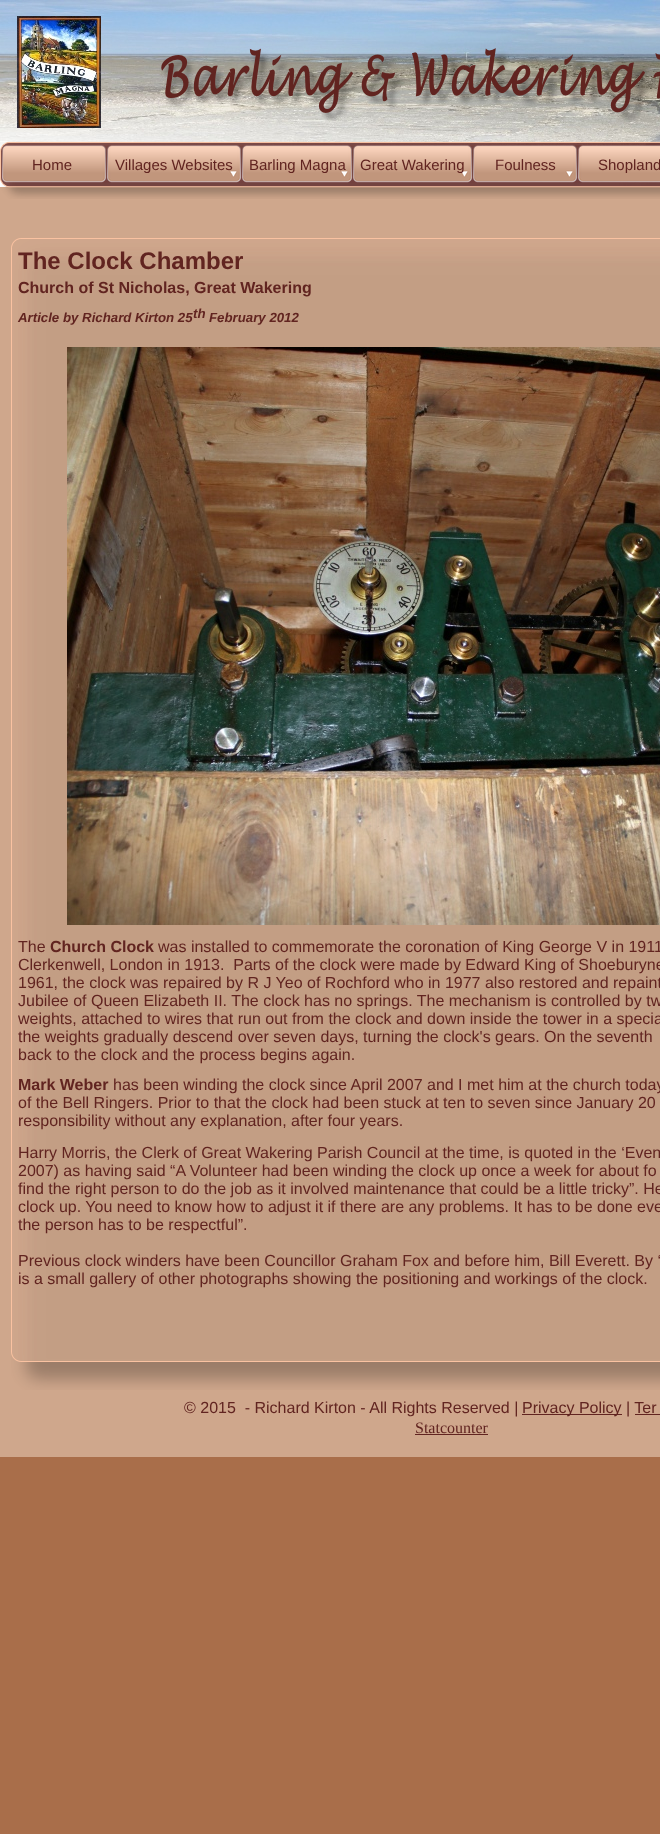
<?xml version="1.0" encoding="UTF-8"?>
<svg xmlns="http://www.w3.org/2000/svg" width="660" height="1834">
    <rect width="100%" height="100%" fill="#A96E4A"/>
    <rect x="0" y="187" width="660" height="1270" fill="#CFA78C"/>
    <image x="0" y="0" width="660" height="187" href="img_01.png"/>
    <image x="17" y="16" width="84" height="112" href="img_02.png"/>
    <image x="161" y="48" width="499" height="74" href="img_03.png"/>
    <image x="0" y="141" width="660" height="58" href="img_04.png"/>
    <image x="2" y="145" width="105" height="38" href="img_05.png"/>
    <text x="32" y="170" font-family="Liberation Sans" font-size="15" fill="#612420">Home</text>
    <image x="107" y="145" width="135" height="38" href="img_06.png"/>
    <text x="115" y="170" font-family="Liberation Sans" font-size="15" fill="#612420">Villages Websites</text>
    <image x="242" y="145" width="111" height="38" href="img_07.png"/>
    <text x="249" y="170" font-family="Liberation Sans" font-size="15" fill="#612420">Barling Magna</text>
    <image x="353" y="145" width="120" height="38" href="img_08.png"/>
    <text x="360" y="170" font-family="Liberation Sans" font-size="15" fill="#612420">Great Wakering</text>
    <image x="473" y="145" width="105" height="38" href="img_09.png"/>
    <text x="495" y="170" font-family="Liberation Sans" font-size="15" fill="#612420">Foulness</text>
    <image x="578" y="145" width="82" height="38" href="img_10.png"/>
    <text x="598" y="170" font-family="Liberation Sans" font-size="15" fill="#612420">Shopland</text>
    <image x="11" y="238" width="649" height="1152" href="img_11.png"/>
    <text x="18" y="269" font-family="Liberation Sans" font-size="24" font-weight="700" fill="#612420">The Clock Chamber</text>
    <text x="18" y="293" font-family="Liberation Sans" font-size="16" font-weight="700" fill="#612420">Church of St Nicholas, Great Wakering</text>
    <text x="18" y="322" font-family="Liberation Sans" font-size="13.25" font-weight="700" font-style="italic" fill="#612420">Article by Richard Kirton 25</text>
    <text x="193" y="318" font-family="Liberation Sans" font-size="13.25" font-weight="700" font-style="italic" fill="#612420">th</text>
    <text x="209" y="322" font-family="Liberation Sans" font-size="13.25" font-weight="700" font-style="italic" fill="#612420">February 2012</text>
    <text x="18" y="952" font-family="Liberation Sans" font-size="16" fill="#612420">The</text>
    <text x="50" y="952" font-family="Liberation Sans" font-size="16" font-weight="700" fill="#612420">Church Clock</text>
    <text x="158" y="952" font-family="Liberation Sans" font-size="16" fill="#612420">was installed to commemorate the coronation of King George V in 1911</text>
    <text font-family="Liberation Sans" font-size="16" fill="#612420" xml:space="preserve"><tspan x="18" y="970">Clerkenwell, London in 1913.  Parts of the clock were made by Edward King of Shoeburyne</tspan><tspan x="18" y="988">1961, the clock was repaired by R J Yeo of Rochford who in 1977 also restored and repaint</tspan><tspan x="18" y="1006">Jubilee of Queen Elizabeth II. The clock has no springs. The mechanism is controlled by tw</tspan><tspan x="18" y="1024">weights, attached to wires that run out from the clock and down inside the tower in a specia</tspan><tspan x="18" y="1042">the weights gradually descend over seven days, turning the clock's gears. On the seventh</tspan><tspan x="18" y="1060">back to the clock and the process begins again.</tspan></text>
    <text x="18" y="1090" font-family="Liberation Sans" font-size="16" font-weight="700" fill="#612420">Mark Weber</text>
    <text x="113" y="1090" font-family="Liberation Sans" font-size="16" fill="#612420">has been winding the clock since April 2007 and I met him at the church today</text>
    <text font-family="Liberation Sans" font-size="16" fill="#612420">
        <tspan x="18" y="1108">of the Bell Ringers. Prior to that the clock had been stuck at ten to seven since January 20</tspan>
        <tspan x="18" y="1126">responsibility without any explanation, after four years.</tspan>
    </text>
    <text font-family="Liberation Sans" font-size="16" fill="#612420">
        <tspan x="18" y="1158">Harry Morris, the Clerk of Great Wakering Parish Council at the time, is quoted in the ‘Even</tspan>
        <tspan x="18" y="1176">2007) as having said “A Volunteer had been winding the clock up once a week for about fo</tspan>
        <tspan x="18" y="1194">find the right person to do the job as it involved maintenance that could be a little tricky”. He</tspan>
        <tspan x="18" y="1212">clock up. You need to know how to adjust it if there are any problems. It has to be done eve</tspan>
        <tspan x="18" y="1230">the person has to be respectful”.</tspan>
    </text>
    <text font-family="Liberation Sans" font-size="16" fill="#612420">
        <tspan x="18" y="1266">Previous clock winders have been Councillor Graham Fox and before him, Bill Everett. By ‘</tspan>
        <tspan x="18" y="1284">is a small gallery of other photographs showing the positioning and workings of the clock.</tspan>
    </text>
    <image x="67" y="347" width="593" height="578" href="img_12.png"/>
    <text x="184" y="1413" font-family="Liberation Sans" font-size="16" fill="#612420" xml:space="preserve">© 2015  - Richard Kirton - All Rights Reserved |</text>
    <rect x="522" y="1414" width="100" height="1" fill="#612420"/>
    <text x="522" y="1413" font-family="Liberation Sans" font-size="16" fill="#612420">Privacy Policy | Ter</text>
    <rect x="635" y="1414" width="25" height="1" fill="#612420"/>
    <text x="415" y="1433" font-family="Liberation Serif" font-size="16" fill="#612420">Statcounter</text>
    <rect x="415" y="1434" width="73" height="1" fill="#612420"/>
</svg>
